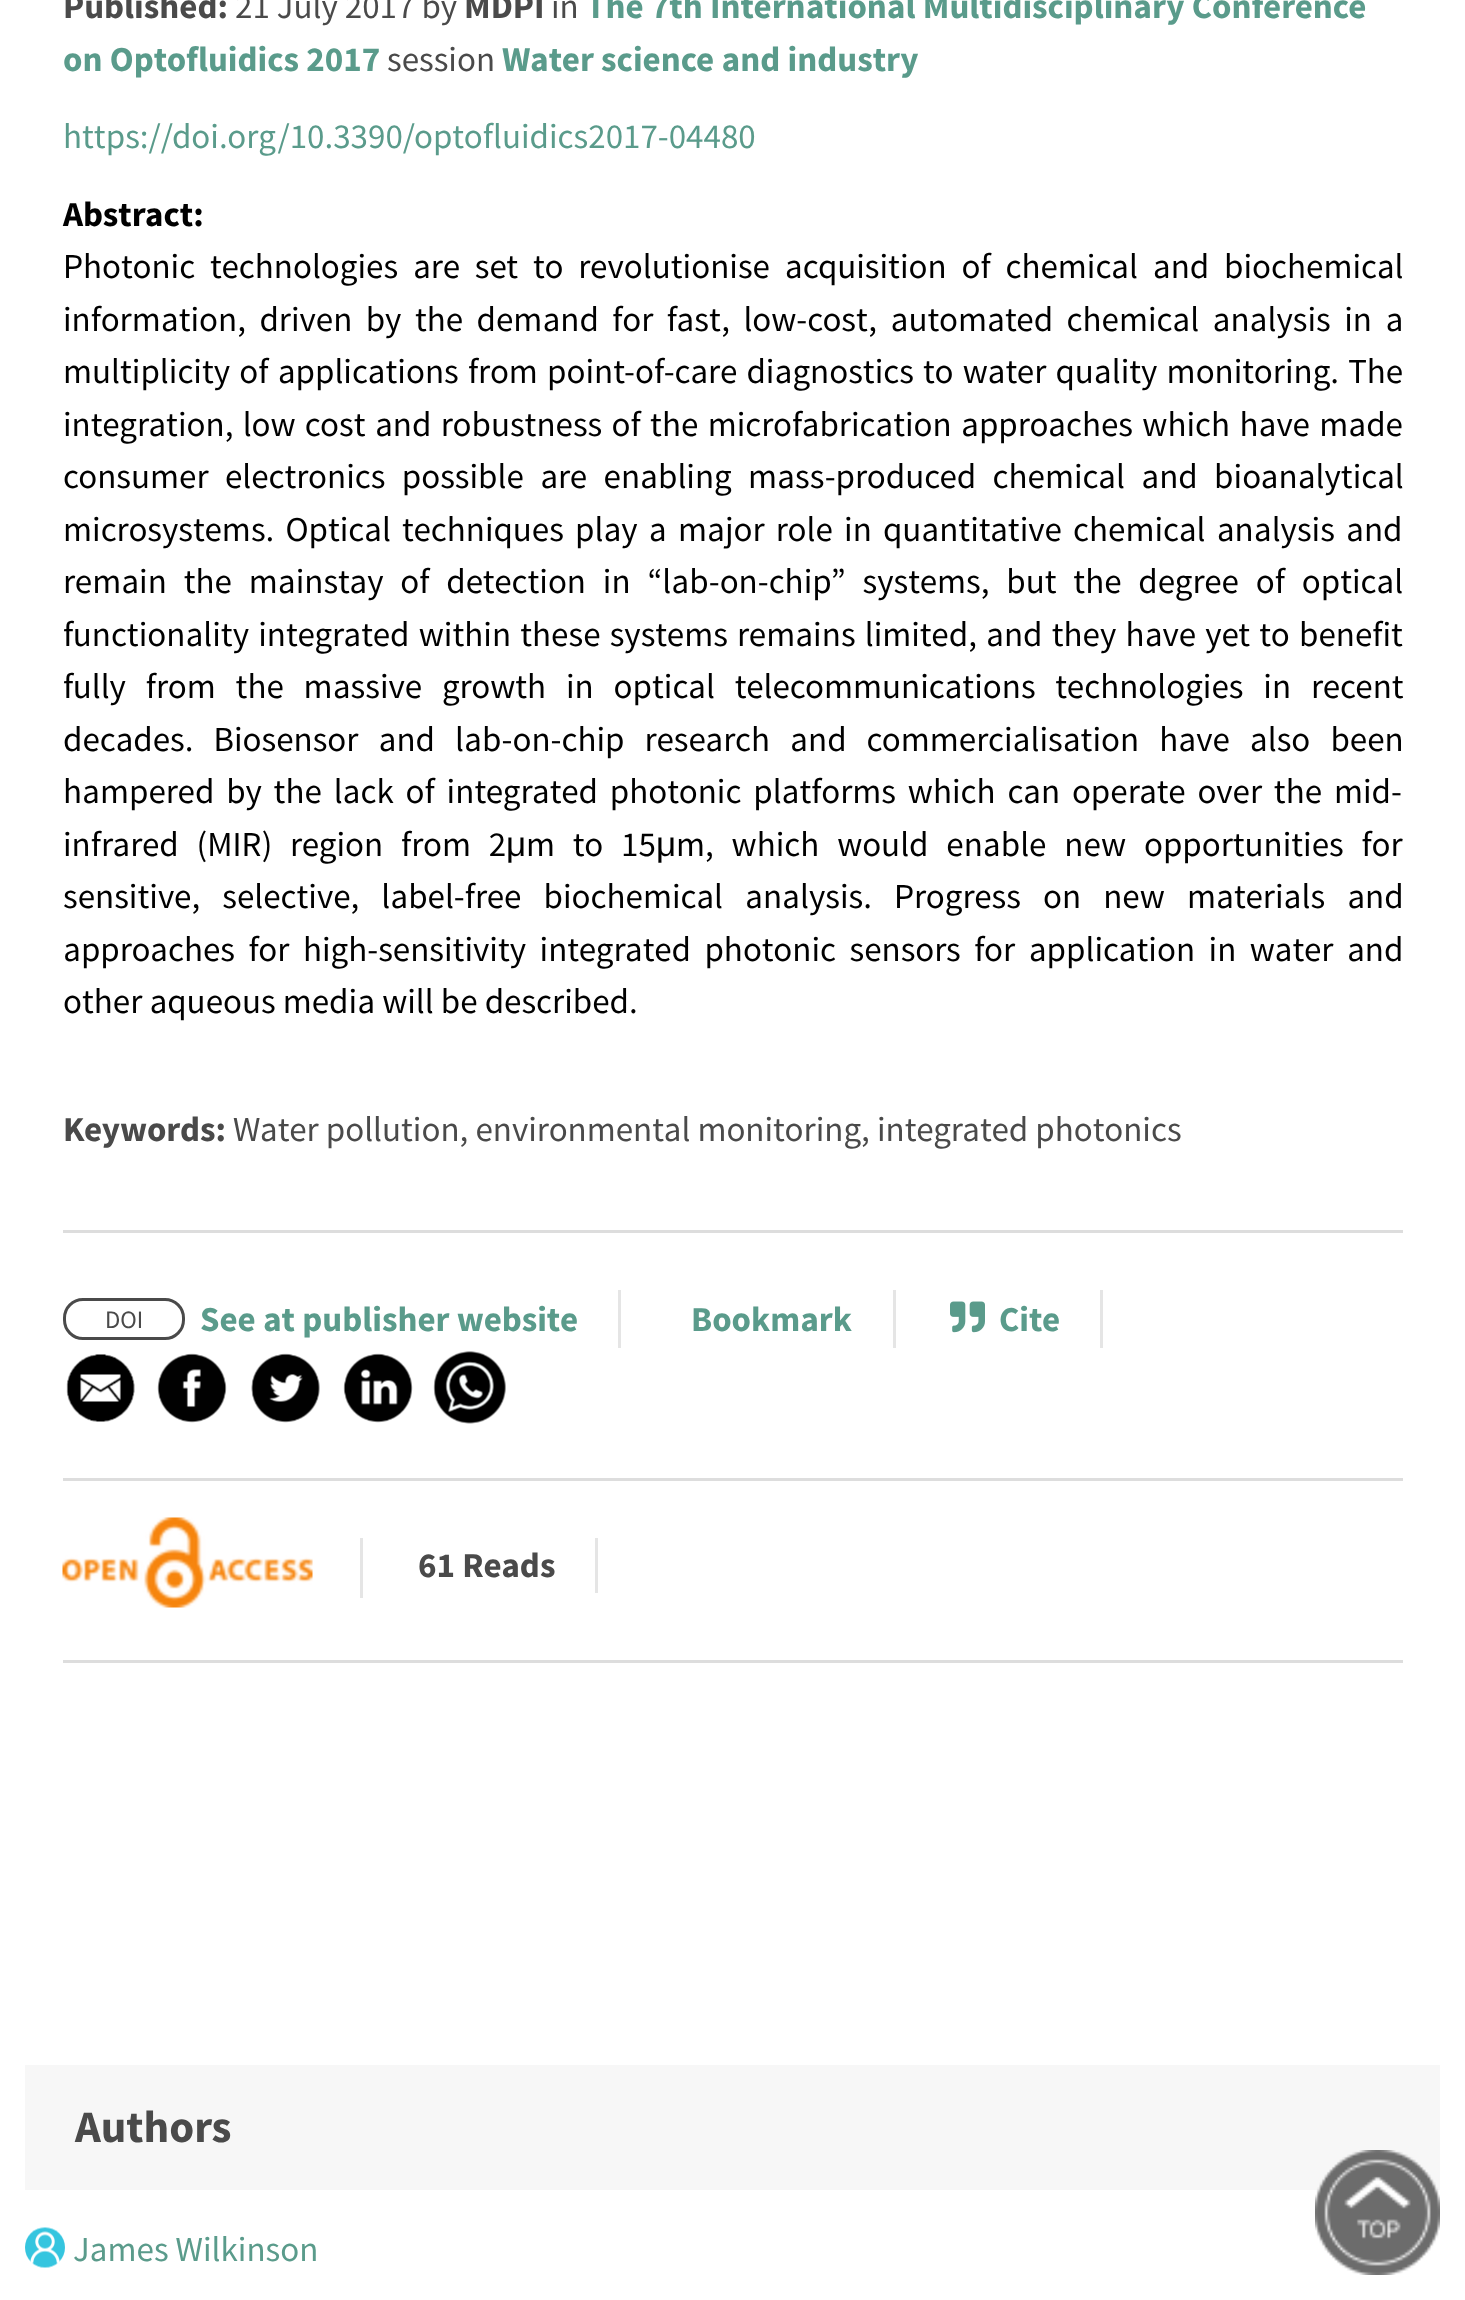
<?xml version="1.0" encoding="UTF-8"?>
<svg xmlns="http://www.w3.org/2000/svg" width="1465" height="2300">
    <rect width="100%" height="100%" fill="#FFFFFF"/>
    <text x="63" y="18" font-family="Source Sans Pro" font-size="35" font-weight="700" fill="#4A4A4A">Published:</text>
    <text x="235" y="18" font-family="Source Sans Pro" font-size="35" fill="#4A4A4A">21 July 2017 by</text>
    <text x="464" y="18" font-family="Source Sans Pro" font-size="35" font-weight="700" fill="#4A4A4A">MDPI</text>
    <text x="551" y="18" font-family="Source Sans Pro" font-size="35" fill="#4A4A4A">in</text>
    <text x="586" y="18" font-family="Source Sans Pro" font-size="35" font-weight="700" fill="#5A9B8B">The 7th International Multidisciplinary Conference</text>
    <text x="63" y="71" font-family="Source Sans Pro" font-size="35" font-weight="700" fill="#5A9B8B">on Optofluidics 2017</text>
    <text x="387" y="71" font-family="Source Sans Pro" font-size="35" fill="#4A4A4A">session</text>
    <text x="502" y="71" font-family="Source Sans Pro" font-size="35" font-weight="700" fill="#5A9B8B">Water science and industry</text>
    <text x="63" y="148" font-family="Source Sans Pro" font-size="35" fill="#5A9B8B">https://doi.org/10.3390/optofluidics2017-04480</text>
    <text x="63" y="226" font-family="Source Sans Pro" font-size="35" font-weight="700" fill="#000000">Abstract:</text>
    <text font-family="Source Sans Pro" font-size="35" fill="#000000">
        <tspan x="63" y="278" word-spacing="7.75">Photonic technologies are set to revolutionise acquisition of chemical and biochemical</tspan>
        <tspan x="63" y="331" word-spacing="6.4">information, driven by the demand for fast, low-cost, automated chemical analysis in a</tspan>
        <tspan x="63" y="383" word-spacing="2.1">multiplicity of applications from point-of-care diagnostics to water quality monitoring. The</tspan>
        <tspan x="63" y="436" word-spacing="2.25">integration, low cost and robustness of the microfabrication approaches which have made</tspan>
        <tspan x="63" y="488" word-spacing="9.25">consumer electronics possible are enabling mass-produced chemical and bioanalytical</tspan>
        <tspan x="63" y="541" word-spacing="4.1">microsystems. Optical techniques play a major role in quantitative chemical analysis and</tspan>
        <tspan x="63" y="593" word-spacing="9.75">remain the mainstay of detection in “lab-on-chip” systems, but the degree of optical</tspan>
        <tspan x="63" y="646" word-spacing="2.1">functionality integrated within these systems remains limited, and they have yet to benefit</tspan>
        <tspan x="63" y="698" word-spacing="12.75">fully from the massive growth in optical telecommunications technologies in recent</tspan>
        <tspan x="63" y="751" word-spacing="13">decades. Biosensor and lab-on-chip research and commercialisation have also been</tspan>
        <tspan x="63" y="803" word-spacing="4.75">hampered by the lack of integrated photonic platforms which can operate over the mid-</tspan>
        <tspan x="63" y="856" word-spacing="10.75">infrared (MIR) region from 2</tspan>
    </text>
    <text x="506" y="856" font-family="Liberation Sans" font-size="35" fill="#000000">μ</text>
    <text x="526" y="856" word-spacing="10.75" font-family="Source Sans Pro" font-size="35" fill="#000000">m to 15</text>
    <text x="656" y="856" font-family="Liberation Sans" font-size="35" fill="#000000">μ</text>
    <text x="676" y="856" word-spacing="10.75" font-family="Source Sans Pro" font-size="35" fill="#000000">m, which would enable new opportunities for</text>
    <text font-family="Source Sans Pro" font-size="35" fill="#000000">
        <tspan x="63" y="908" word-spacing="15">sensitive, selective, label-free biochemical analysis. Progress on new materials and</tspan>
        <tspan x="63" y="961" word-spacing="6.4">approaches for high-sensitivity integrated photonic sensors for application in water and</tspan>
        <tspan x="63" y="1013">other aqueous media will be described.</tspan>
    </text>
    <text x="63" y="1141" font-family="Source Sans Pro" font-size="35" font-weight="700" fill="#4A4A4A">Keywords:</text>
    <text x="233" y="1141" font-family="Source Sans Pro" font-size="35" fill="#4A4A4A">Water pollution, environmental monitoring, integrated photonics</text>
    <rect x="63" y="1230" width="1340" height="3" fill="#DDDDDD"/>
    <rect x="618" y="1290" width="3" height="58" fill="#E5E5E5"/>
    <rect x="64.5" y="1299.5" width="119" height="39" rx="18.5" fill="none" stroke="#4A4A4A" stroke-width="3"/>
    <text x="105" y="1328" font-family="Source Sans Pro" font-size="25" fill="#4A4A4A">DOI</text>
    <text x="200" y="1331" font-family="Source Sans Pro" font-size="35" font-weight="700" fill="#5A9B8B">See at publisher website</text>
    <rect x="893" y="1290" width="3" height="58" fill="#E5E5E5"/>
    <text x="691" y="1331" font-family="Source Sans Pro" font-size="35" font-weight="700" fill="#5A9B8B">Bookmark</text>
    <rect x="1100" y="1290" width="3" height="58" fill="#E5E5E5"/>
    <image x="950" y="1301" width="35" height="32" href="img_01.png"/>
    <text x="999" y="1331" font-family="Source Sans Pro" font-size="35" font-weight="700" fill="#5A9B8B">Cite</text>
    <image x="66" y="1354" width="69" height="68" href="img_02.png"/>
    <image x="157" y="1353" width="70" height="70" href="img_03.png"/>
    <image x="251" y="1353" width="69" height="70" href="img_04.png"/>
    <image x="343" y="1353" width="70" height="70" href="img_05.png"/>
    <image x="433" y="1351" width="73" height="73" href="img_06.png"/>
    <rect x="63" y="1478" width="1340" height="3" fill="#DDDDDD"/>
    <rect x="360" y="1538" width="3" height="60" fill="#E5E5E5"/>
    <image x="62" y="1517" width="251" height="91" href="img_07.png"/>
    <rect x="595" y="1538" width="3" height="55" fill="#E5E5E5"/>
    <text x="418" y="1577" font-family="Source Sans Pro" font-size="35" font-weight="700" fill="#4A4A4A">61 Reads</text>
    <rect x="63" y="1660" width="1340" height="3" fill="#DDDDDD"/>
    <rect x="25" y="2065" width="1415" height="125" fill="#F7F7F7"/>
    <text x="75" y="2142" font-family="Source Sans Pro" font-size="45" font-weight="700" fill="#4A4A4A">Authors</text>
    <image x="25" y="2227" width="40" height="41" href="img_08.png"/>
    <text x="73" y="2261" font-family="Source Sans Pro" font-size="35" fill="#5A9B8B">James Wilkinson</text>
    <image x="1315" y="2150" width="125" height="125" href="img_09.png"/>
</svg>
